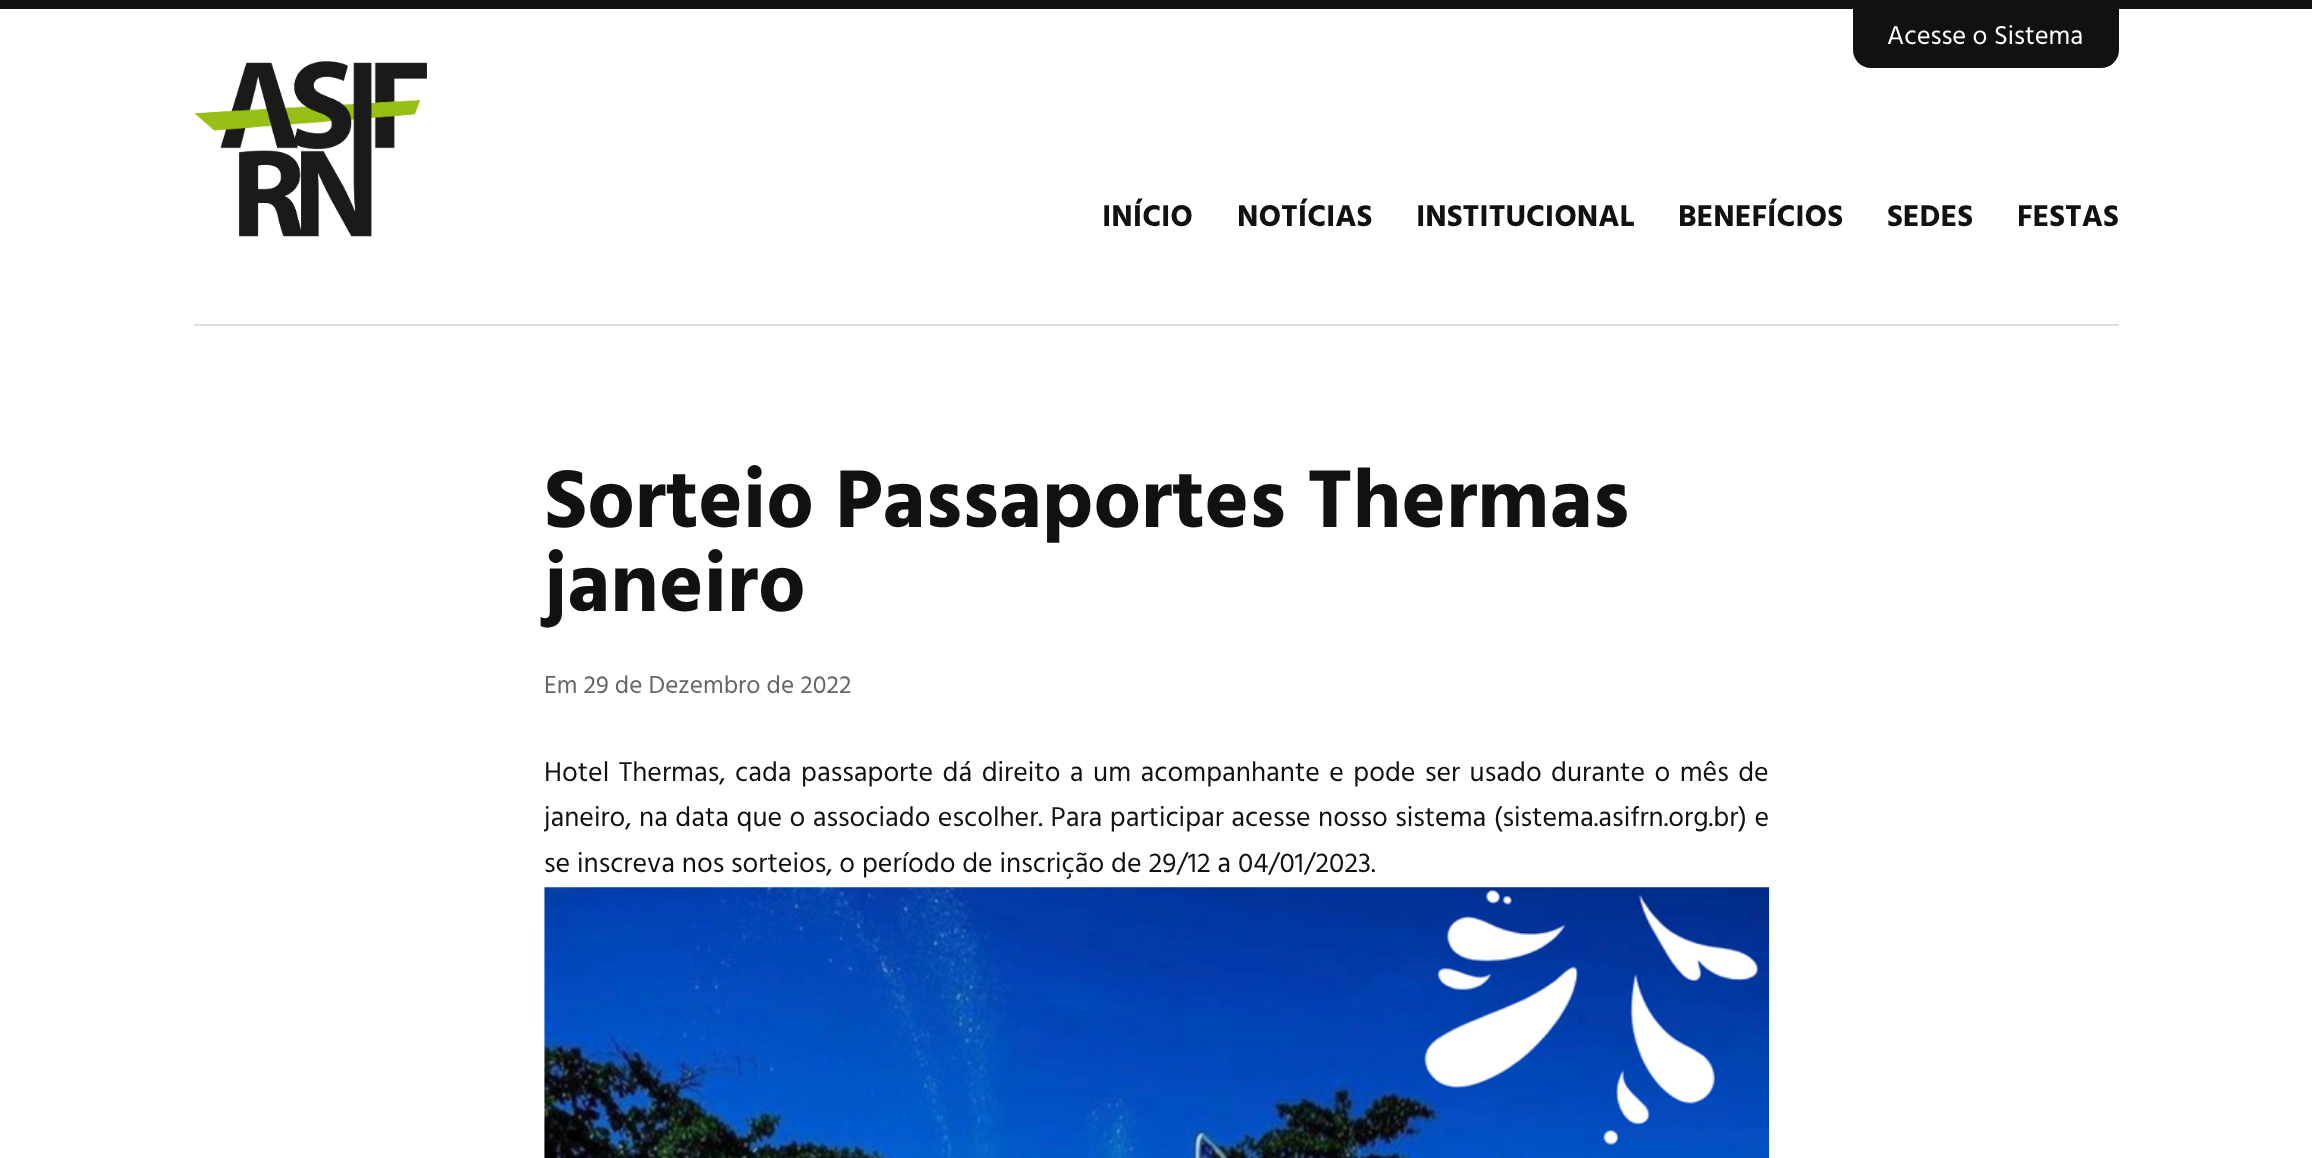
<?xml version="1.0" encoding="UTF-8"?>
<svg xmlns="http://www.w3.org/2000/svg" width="2312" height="1158">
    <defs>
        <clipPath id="clip1"><rect x="544" y="707" width="1225" height="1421"/></clipPath>
    </defs>
    <rect width="100%" height="100%" fill="#FFFFFF"/>
    <rect x="0" y="0" width="2312" height="9" fill="#111111"/>
    <rect x="194" y="324" width="1925" height="2" fill="#DDDDDD"/>
    <path d="M 1853 9 H 2119 V 50 C 2119 60 2111 68 2101 68 H 1871 C 1861 68 1853 60 1853 50 Z" fill="#111111"/>
    <text x="1887" y="44" font-family="Hind" font-size="26.5" fill="#FFFFFF">Acesse o Sistema</text>
    <image x="194" y="61" width="233" height="176" href="img_01.png"/>
    <text x="1102" y="226" font-family="Hind" font-size="30.75" font-weight="700" fill="#111111">INÍCIO</text>
    <text x="1237" y="226" font-family="Hind" font-size="30.75" font-weight="700" fill="#111111">NOTÍCIAS</text>
    <text x="1416" y="226" font-family="Hind" font-size="30.75" font-weight="700" fill="#111111">INSTITUCIONAL</text>
    <text x="1678" y="226" font-family="Hind" font-size="30.75" font-weight="700" fill="#111111">BENEFÍCIOS</text>
    <text x="1887" y="226" font-family="Hind" font-size="30.75" font-weight="700" fill="#111111">SEDES</text>
    <text x="2017" y="226" font-family="Hind" font-size="30.75" font-weight="700" fill="#111111">FESTAS</text>
    <text font-family="Hind" font-size="84" font-weight="700" fill="#111111">
        <tspan x="544" y="527">Sorteio Passaportes Thermas</tspan>
        <tspan x="544" y="611">janeiro</tspan>
    </text>
    <text x="544" y="693" font-family="Hind" font-size="25.25" fill="#666666">Em 29 de Dezembro de 2022</text>
    <text x="544" y="781" word-spacing="2.6" font-family="Hind" font-size="28" fill="#111111">Hotel Thermas, cada passaporte dá direito a um acompanhante e pode ser usado durante o mês de</text>
    <g clip-path="url(#clip1)">
        <text x="544" y="826" word-spacing="0.6" font-family="Hind" font-size="28" fill="#111111">janeiro, na data que o associado escolher. Para participar acesse nosso sistema (sistema.asifrn.org.br) e</text>
    </g>
    <text x="544" y="872" font-family="Hind" font-size="28" fill="#111111">se inscreva nos sorteios, o período de inscrição de 29/12 a 04/01/2023.</text>
    <image x="544" y="887" width="1226" height="271" href="img_02.png"/>
</svg>
